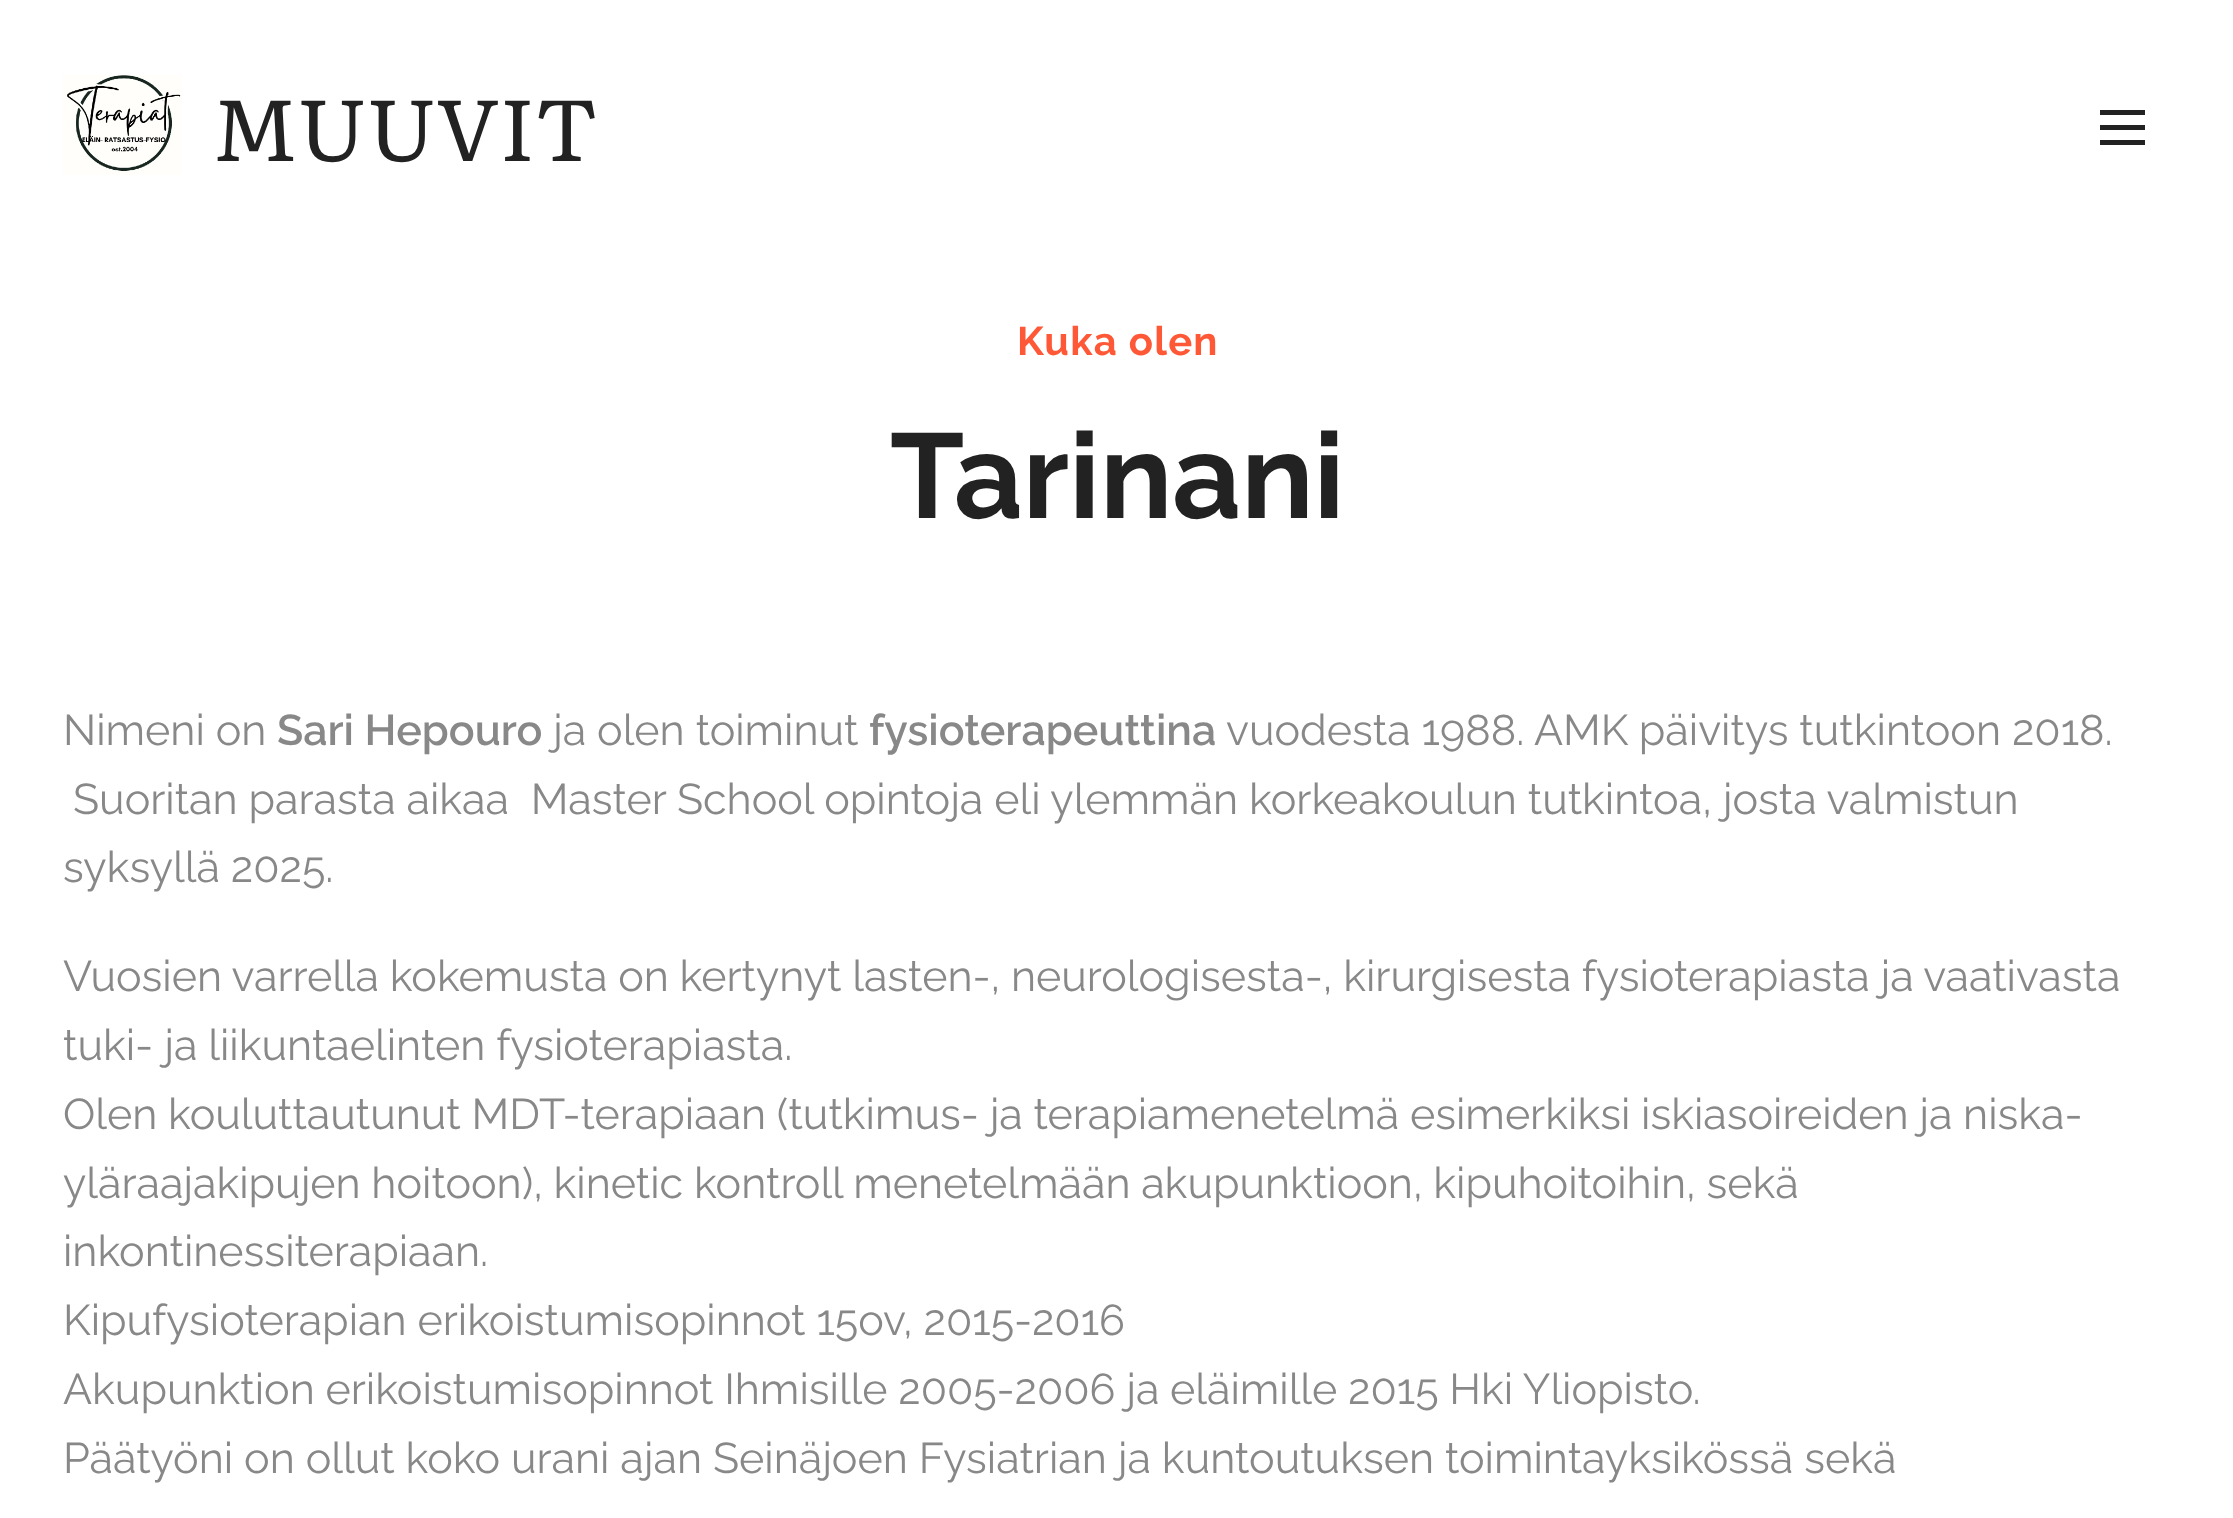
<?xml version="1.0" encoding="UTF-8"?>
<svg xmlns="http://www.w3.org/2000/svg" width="2233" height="1518">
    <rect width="100%" height="100%" fill="#FFFFFF"/>
    <image x="63" y="75" width="119" height="100" href="img_01.png"/>
    <text x="212" y="161" font-family="Literata" font-size="86" fill="#222222">MUUVIT</text>
    <rect x="2100" y="125" width="45" height="5" fill="#222222"/>
    <rect x="2100" y="110" width="45" height="5" fill="#222222"/>
    <rect x="2100" y="140" width="45" height="5" fill="#222222"/>
    <text x="1017" y="355" font-family="Raleway" font-size="40" font-weight="700" letter-spacing="1.25" fill="#FF5837">Kuka olen</text>
    <text x="890" y="518" font-family="Raleway" font-size="120" font-weight="700" fill="#222222">Tarinani</text>
    <text x="63" y="745" font-family="Raleway" font-size="43" fill="#888888">Nimeni on</text>
    <text x="277" y="745" font-family="Raleway" font-size="43" font-weight="600" fill="#888888">Sari Hepouro</text>
    <text x="553" y="745" font-family="Raleway" font-size="43" fill="#888888">ja olen toiminut</text>
    <text x="869" y="745" font-family="Raleway" font-size="43" font-weight="600" fill="#888888">fysioterapeuttina</text>
    <text x="1226" y="745" font-family="Raleway" font-size="43" fill="#888888">vuodesta 1988. AMK päivitys tutkintoon 2018.</text>
    <text x="73" y="814" font-family="Raleway" font-size="43" fill="#888888" xml:space="preserve">Suoritan parasta aikaa  Master School opintoja eli ylemmän korkeakoulun tutkintoa, josta valmistun</text>
    <text x="63" y="882" font-family="Raleway" font-size="43" fill="#888888">syksyllä 2025.</text>
    <text font-family="Raleway" font-size="43" fill="#888888">
        <tspan x="63" y="991" word-spacing="-0.25">Vuosien varrella kokemusta on kertynyt lasten-, neurologisesta-, kirurgisesta fysioterapiasta ja vaativasta</tspan>
        <tspan x="63" y="1060">tuki- ja liikuntaelinten fysioterapiasta.</tspan>
        <tspan x="63" y="1129" word-spacing="-0.25">Olen kouluttautunut MDT-terapiaan (tutkimus- ja terapiamenetelmä esimerkiksi iskiasoireiden ja niska-</tspan>
        <tspan x="63" y="1198" word-spacing="-0.25">yläraajakipujen hoitoon), kinetic kontroll menetelmään akupunktioon, kipuhoitoihin, sekä</tspan>
        <tspan x="63" y="1266">inkontinessiterapiaan.</tspan>
        <tspan x="63" y="1335">Kipufysioterapian erikoistumisopinnot 15ov, 2015-2016</tspan>
        <tspan x="63" y="1404" word-spacing="-0.25">Akupunktion erikoistumisopinnot Ihmisille 2005-2006 ja eläimille 2015 Hki Yliopisto.</tspan>
        <tspan x="63" y="1473">Päätyöni on ollut koko urani ajan Seinäjoen Fysiatrian ja kuntoutuksen toimintayksikössä sekä</tspan>
    </text>
</svg>
